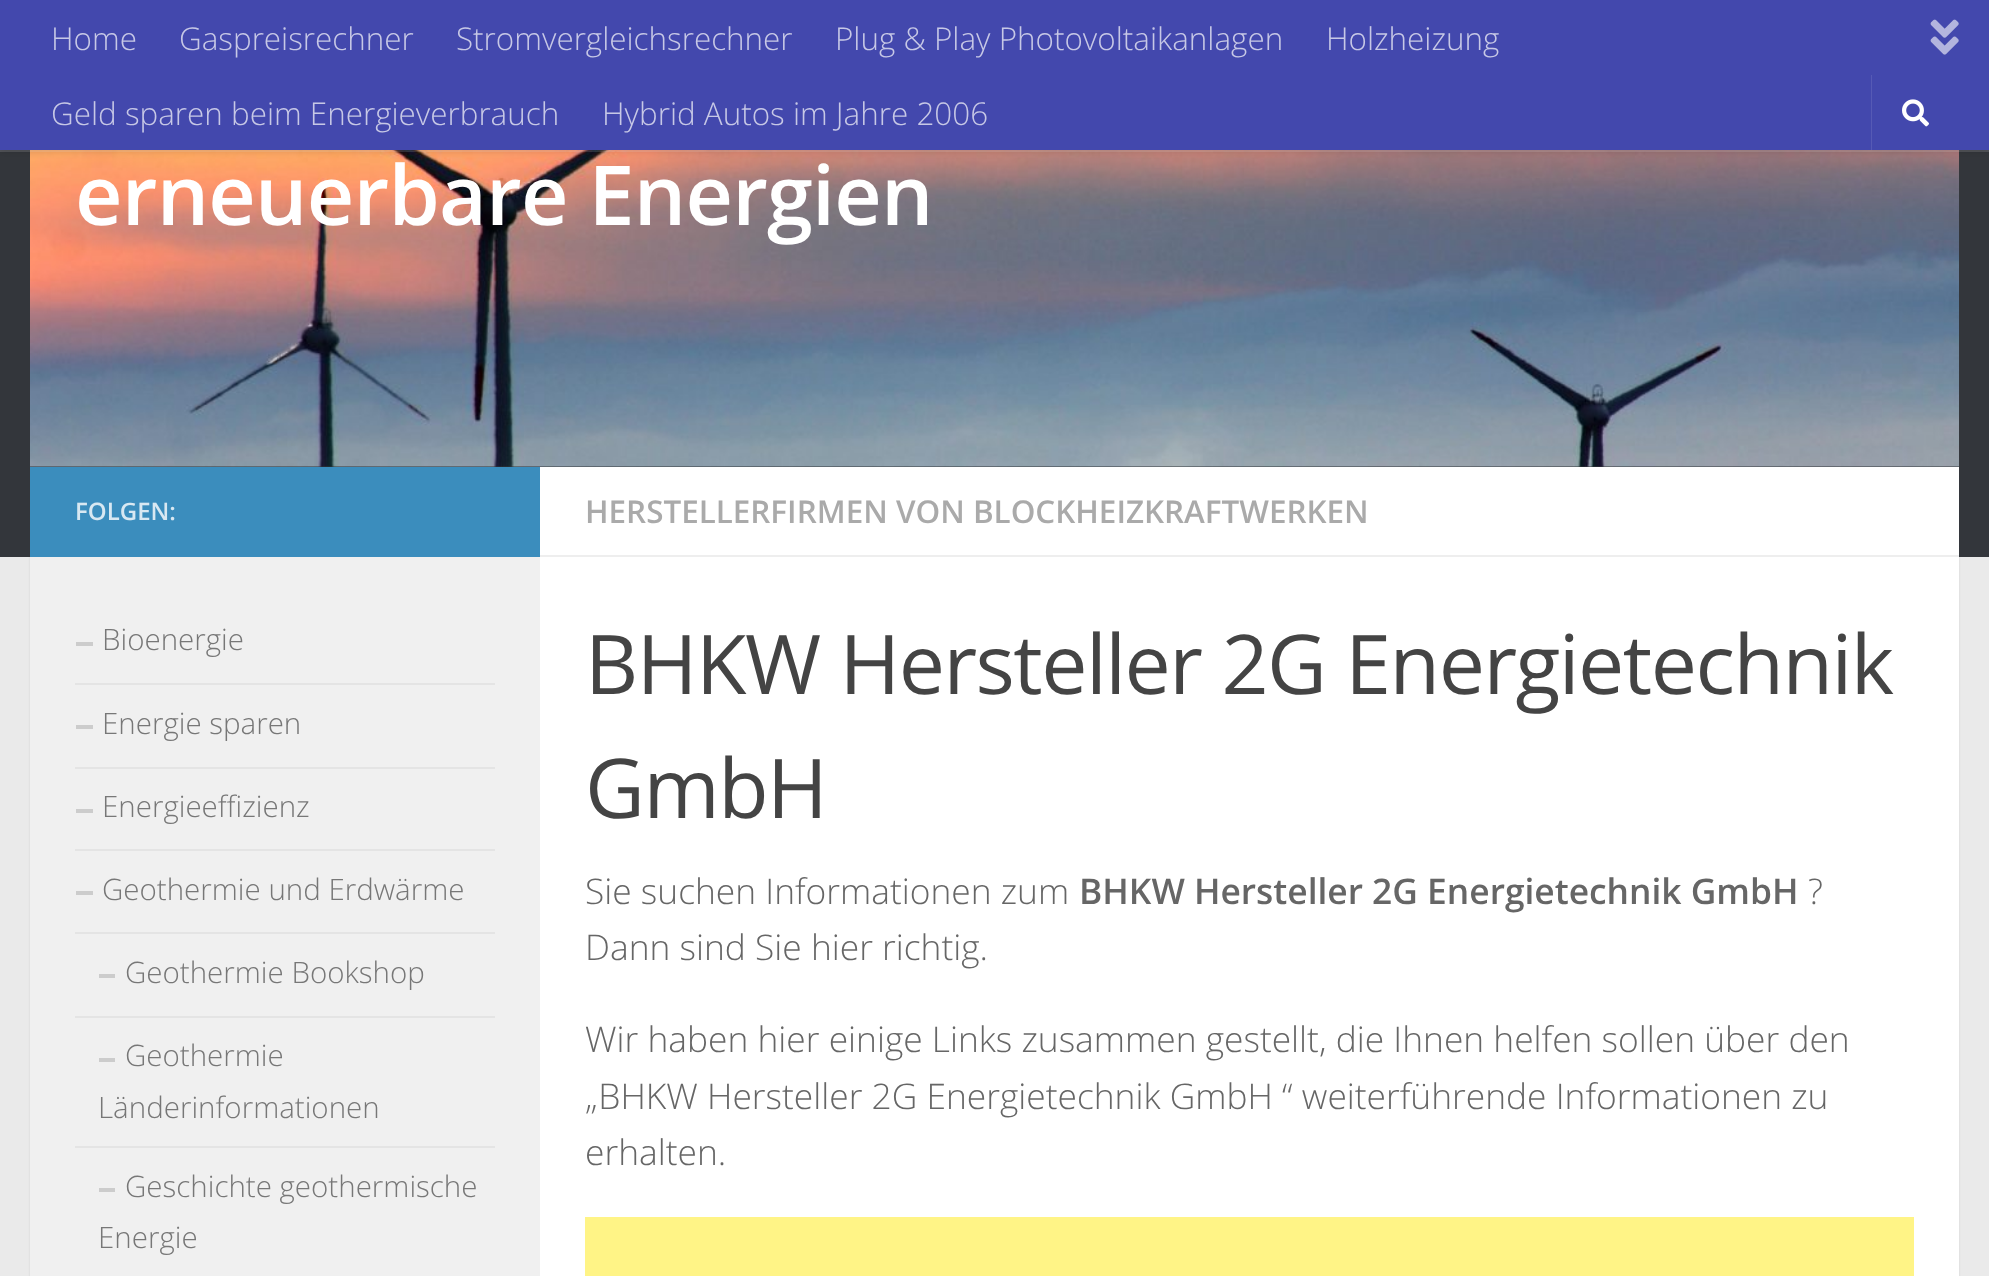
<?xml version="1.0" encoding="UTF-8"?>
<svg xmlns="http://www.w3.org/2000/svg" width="1989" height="1276">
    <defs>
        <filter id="blur1" x="-50%" y="-200%" width="200%" height="500%"><feGaussianBlur stdDeviation="1"/></filter>
        <filter id="blur2" x="-50%" y="-200%" width="200%" height="500%"><feGaussianBlur stdDeviation="4"/></filter>
    </defs>
    <rect width="100%" height="100%" fill="#EAEAEA"/>
    <rect x="30" y="468" width="1929" height="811" fill="#000000" fill-opacity="0.1" filter="url(#blur1)"/>
    <rect x="0" y="150" width="1989" height="407" fill="#33363B"/>
    <image x="30" y="150" width="1929" height="317" href="img_03.png"/>
    <rect x="0" y="150" width="1989" height="2" fill="#FFFFFF" fill-opacity="0.15"/>
    <rect x="0" y="0" width="1989" height="150" fill="#000000" fill-opacity="0.2" filter="url(#blur2)"/>
    <rect x="0" y="0" width="1989" height="150" fill="#4348AD"/>
    <text x="51" y="50" font-family="Open Sans" font-size="31.4" font-weight="300" fill="#C7C8E6">Home</text>
    <text x="179" y="50" font-family="Open Sans" font-size="31.4" font-weight="300" fill="#C7C8E6">Gaspreisrechner</text>
    <text x="456" y="50" font-family="Open Sans" font-size="31.4" font-weight="300" fill="#C7C8E6">Stromvergleichsrechner</text>
    <text x="835" y="50" font-family="Open Sans" font-size="31.4" font-weight="300" fill="#C7C8E6">Plug &amp; Play Photovoltaikanlagen</text>
    <text x="1326" y="50" font-family="Open Sans" font-size="31.4" font-weight="300" fill="#C7C8E6">Holzheizung</text>
    <text x="51" y="125" font-family="Open Sans" font-size="31.4" font-weight="300" fill="#C7C8E6">Geld sparen beim Energieverbrauch</text>
    <text x="602" y="125" font-family="Open Sans" font-size="31.4" font-weight="300" fill="#C7C8E6">Hybrid Autos im Jahre 2006</text>
    <rect x="1871" y="75" width="1" height="75" fill="#565AB5"/>
    <image x="1902" y="99" width="27" height="28" href="img_01.png"/>
    <image x="1930" y="19" width="29" height="36" href="img_02.png"/>
    <text x="75" y="225" font-family="Open Sans" font-size="82.5" font-weight="600" letter-spacing="-0.75" fill="#FFFFFF">erneuerbare Energien</text>
    <rect x="540" y="467" width="1419" height="809" fill="#FFFFFF"/>
    <rect x="30" y="467" width="510" height="90" fill="#3B8DBD"/>
    <text x="75" y="520" font-family="Open Sans" font-size="24" font-weight="600" fill="#D8E8F2">FOLGEN:</text>
    <rect x="30" y="557" width="510" height="719" fill="#F0F0F0"/>
    <rect x="75" y="683" width="420" height="2" fill="#E4E4E4"/>
    <rect x="76" y="642" width="17" height="4" fill="#CCCCCC"/>
    <text x="102" y="650" font-family="Open Sans" font-size="29.5" font-weight="300" fill="#777777">Bioenergie</text>
    <rect x="75" y="767" width="420" height="2" fill="#E4E4E4"/>
    <rect x="76" y="725" width="17" height="4" fill="#CCCCCC"/>
    <text x="102" y="734" font-family="Open Sans" font-size="29.5" font-weight="300" fill="#777777">Energie sparen</text>
    <rect x="75" y="849" width="420" height="2" fill="#E4E4E4"/>
    <rect x="76" y="809" width="17" height="4" fill="#CCCCCC"/>
    <text x="102" y="817" font-family="Open Sans" font-size="29.5" font-weight="300" fill="#777777">Energieeffizienz</text>
    <rect x="75" y="932" width="420" height="2" fill="#E4E4E4"/>
    <rect x="76" y="891" width="17" height="4" fill="#CCCCCC"/>
    <text x="102" y="900" font-family="Open Sans" font-size="29.5" font-weight="300" fill="#777777">Geothermie und Erdwärme</text>
    <rect x="75" y="1016" width="420" height="2" fill="#E4E4E4"/>
    <rect x="99" y="974" width="16" height="4" fill="#CCCCCC"/>
    <text x="125" y="983" font-family="Open Sans" font-size="29.5" font-weight="300" fill="#777777">Geothermie Bookshop</text>
    <rect x="75" y="1146" width="420" height="2" fill="#E4E4E4"/>
    <rect x="99" y="1058" width="16" height="4" fill="#CCCCCC"/>
    <text x="125" y="1066" font-family="Open Sans" font-size="29.5" font-weight="300" fill="#777777">Geothermie</text>
    <text x="98" y="1118" font-family="Open Sans" font-size="29.5" font-weight="300" fill="#777777">Länderinformationen</text>
    <rect x="99" y="1188" width="16" height="4" fill="#CCCCCC"/>
    <text x="125" y="1197" font-family="Open Sans" font-size="29.5" font-weight="300" fill="#777777">Geschichte geothermische</text>
    <text x="98" y="1248" font-family="Open Sans" font-size="29.5" font-weight="300" fill="#777777">Energie</text>
    <rect x="540" y="555" width="1419" height="2" fill="#EEEEEE"/>
    <text x="585" y="523" font-family="Open Sans" font-size="31.4" font-weight="600" fill="#AAAAAA">HERSTELLERFIRMEN VON BLOCKHEIZKRAFTWERKEN</text>
    <text font-family="Open Sans" font-size="82.4" letter-spacing="-1.5" fill="#444444">
        <tspan x="585" y="694">BHKW Hersteller 2G Energietechnik</tspan>
        <tspan x="585" y="818">GmbH</tspan>
    </text>
    <text x="585" y="904" font-family="Open Sans" font-size="35.35" font-weight="300" fill="#666666">Sie suchen Informationen zum</text>
    <text x="1079" y="904" font-family="Open Sans" font-size="35.35" font-weight="600" fill="#666666">BHKW Hersteller 2G Energietechnik GmbH</text>
    <text x="1808" y="904" font-family="Open Sans" font-size="35.35" font-weight="300" fill="#666666">?</text>
    <text x="585" y="960" font-family="Open Sans" font-size="35.35" font-weight="300" fill="#666666">Dann sind Sie hier richtig.</text>
    <text font-family="Open Sans" font-size="35.35" font-weight="300" fill="#666666">
        <tspan x="585" y="1052">Wir haben hier einige Links zusammen gestellt, die Ihnen helfen sollen über den</tspan>
        <tspan x="585" y="1109">„BHKW Hersteller 2G Energietechnik GmbH “ weiterführende Informationen zu</tspan>
        <tspan x="585" y="1165">erhalten.</tspan>
    </text>
    <rect x="585" y="1217" width="1329" height="59" fill="#FFF486"/>
</svg>
